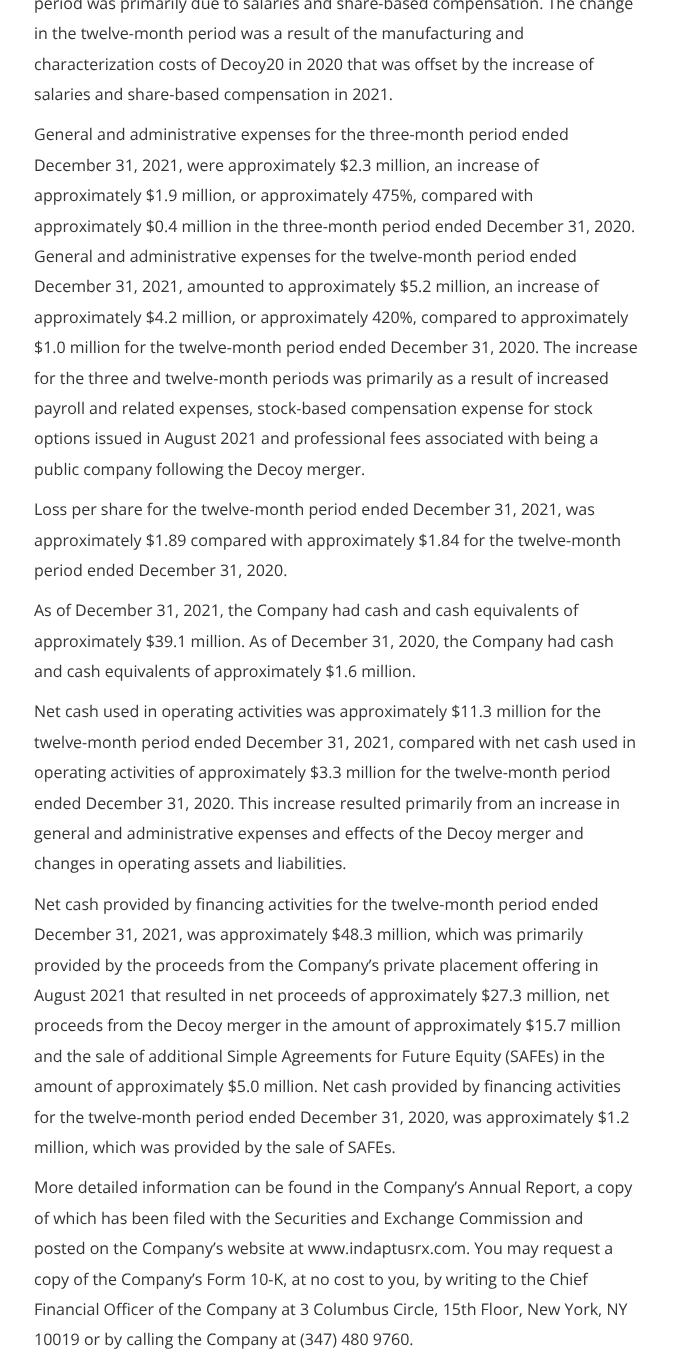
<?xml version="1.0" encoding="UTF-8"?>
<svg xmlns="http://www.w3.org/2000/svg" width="687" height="1356">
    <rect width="100%" height="100%" fill="#FFFFFF"/>
    <text font-family="Open Sans" font-size="16" fill="#333333">
        <tspan x="34" y="9">period was primarily due to salaries and share-based compensation. The change</tspan>
        <tspan x="34" y="39">in the twelve-month period was a result of the manufacturing and</tspan>
        <tspan x="34" y="70">characterization costs of Decoy20 in 2020 that was offset by the increase of</tspan>
        <tspan x="34" y="100">salaries and share-based compensation in 2021.</tspan>
    </text>
    <text font-family="Open Sans" font-size="16" fill="#333333">
        <tspan x="34" y="140">General and administrative expenses for the three-month period ended</tspan>
        <tspan x="34" y="171">December 31, 2021, were approximately $2.3 million, an increase of</tspan>
        <tspan x="34" y="201">approximately $1.9 million, or approximately 475%, compared with</tspan>
        <tspan x="34" y="232">approximately $0.4 million in the three-month period ended December 31, 2020.</tspan>
        <tspan x="34" y="262">General and administrative expenses for the twelve-month period ended</tspan>
        <tspan x="34" y="292">December 31, 2021, amounted to approximately $5.2 million, an increase of</tspan>
        <tspan x="34" y="323">approximately $4.2 million, or approximately 420%, compared to approximately</tspan>
        <tspan x="34" y="353">$1.0 million for the twelve-month period ended December 31, 2020. The increase</tspan>
        <tspan x="34" y="384">for the three and twelve-month periods was primarily as a result of increased</tspan>
        <tspan x="34" y="414">payroll and related expenses, stock-based compensation expense for stock</tspan>
        <tspan x="34" y="444">options issued in August 2021 and professional fees associated with being a</tspan>
        <tspan x="34" y="475">public company following the Decoy merger.</tspan>
    </text>
    <text font-family="Open Sans" font-size="16" fill="#333333">
        <tspan x="34" y="515">Loss per share for the twelve-month period ended December 31, 2021, was</tspan>
        <tspan x="34" y="546">approximately $1.89 compared with approximately $1.84 for the twelve-month</tspan>
        <tspan x="34" y="576">period ended December 31, 2020.</tspan>
    </text>
    <text font-family="Open Sans" font-size="16" fill="#333333">
        <tspan x="34" y="616">As of December 31, 2021, the Company had cash and cash equivalents of</tspan>
        <tspan x="34" y="647">approximately $39.1 million. As of December 31, 2020, the Company had cash</tspan>
        <tspan x="34" y="677">and cash equivalents of approximately $1.6 million.</tspan>
    </text>
    <text font-family="Open Sans" font-size="16" fill="#333333">
        <tspan x="34" y="717">Net cash used in operating activities was approximately $11.3 million for the</tspan>
        <tspan x="34" y="748">twelve-month period ended December 31, 2021, compared with net cash used in</tspan>
        <tspan x="34" y="778">operating activities of approximately $3.3 million for the twelve-month period</tspan>
        <tspan x="34" y="809">ended December 31, 2020. This increase resulted primarily from an increase in</tspan>
        <tspan x="34" y="839">general and administrative expenses and effects of the Decoy merger and</tspan>
        <tspan x="34" y="869">changes in operating assets and liabilities.</tspan>
    </text>
    <text font-family="Open Sans" font-size="16" fill="#333333">
        <tspan x="34" y="910">Net cash provided by financing activities for the twelve-month period ended</tspan>
        <tspan x="34" y="940">December 31, 2021, was approximately $48.3 million, which was primarily</tspan>
        <tspan x="34" y="971">provided by the proceeds from the Company’s private placement offering in</tspan>
        <tspan x="34" y="1001">August 2021 that resulted in net proceeds of approximately $27.3 million, net</tspan>
        <tspan x="34" y="1031">proceeds from the Decoy merger in the amount of approximately $15.7 million</tspan>
        <tspan x="34" y="1062">and the sale of additional Simple Agreements for Future Equity (SAFEs) in the</tspan>
        <tspan x="34" y="1092">amount of approximately $5.0 million. Net cash provided by financing activities</tspan>
        <tspan x="34" y="1123">for the twelve-month period ended December 31, 2020, was approximately $1.2</tspan>
        <tspan x="34" y="1153">million, which was provided by the sale of SAFEs.</tspan>
    </text>
    <text font-family="Open Sans" font-size="16" fill="#333333">
        <tspan x="34" y="1193">More detailed information can be found in the Company’s Annual Report, a copy</tspan>
        <tspan x="34" y="1224">of which has been filed with the Securities and Exchange Commission and</tspan>
        <tspan x="34" y="1254">posted on the Company’s website at www.indaptusrx.com. You may request a</tspan>
        <tspan x="34" y="1285">copy of the Company’s Form 10-K, at no cost to you, by writing to the Chief</tspan>
        <tspan x="34" y="1315">Financial Officer of the Company at 3 Columbus Circle, 15th Floor, New York, NY</tspan>
        <tspan x="34" y="1345">10019 or by calling the Company at (347) 480 9760.</tspan>
    </text>
</svg>
